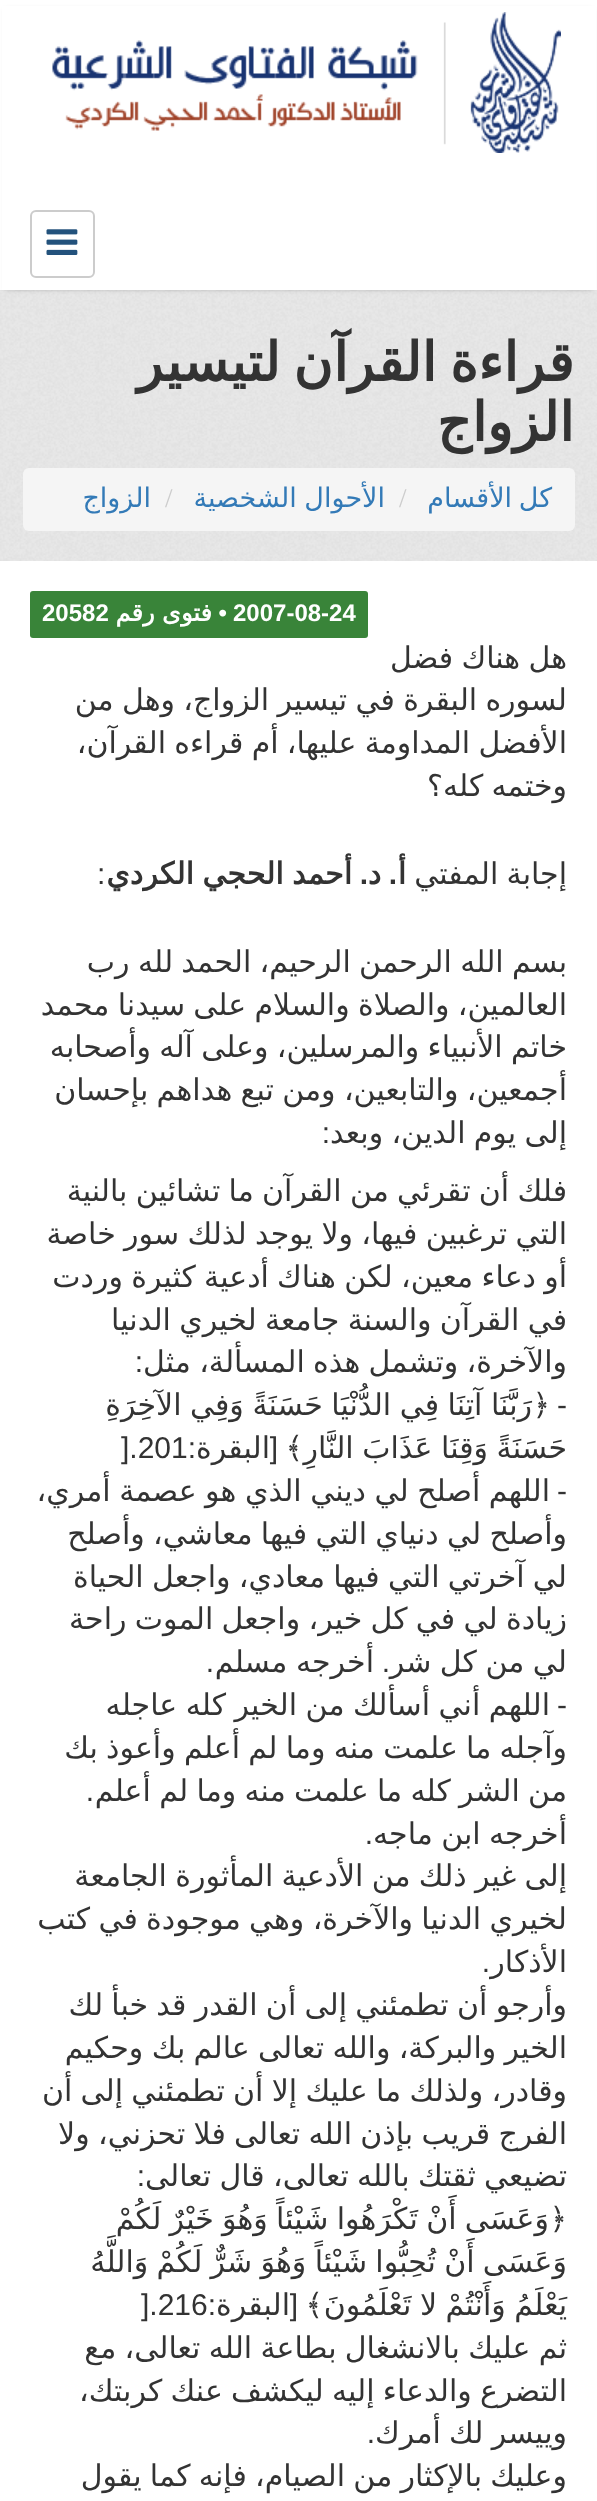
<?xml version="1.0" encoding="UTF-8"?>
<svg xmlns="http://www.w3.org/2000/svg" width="597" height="2501">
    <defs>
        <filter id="blur1" x="-50%" y="-200%" width="200%" height="500%"><feGaussianBlur stdDeviation="2"/></filter>
    </defs>
    <rect width="100%" height="100%" fill="#FFFFFF"/>
    <image x="0" y="290" width="597" height="271" href="img_01.png"/>
    <rect x="5" y="9" width="588" height="281" fill="#000000" fill-opacity="0.2" filter="url(#blur1)"/>
    <rect x="2" y="6" width="594" height="284" fill="#FFFFFF"/>
    <image x="52" y="12" width="509" height="141" href="img_02.png"/>
    <rect x="31" y="211" width="63" height="66" rx="5" fill="none" stroke="#CCCCCC" stroke-width="2"/>
    <image x="46" y="229" width="32" height="26" href="img_03.png"/>
    <text font-family="DejaVu Sans" font-size="54" font-weight="700" direction="rtl" fill="#333333">
        <tspan x="574" y="381" word-spacing="-4">قراءة القرآن لتيسير</tspan>
        <tspan x="574" y="441">الزواج</tspan>
    </text>
    <rect x="23" y="468" width="552" height="63" rx="6" fill="#F5F5F5"/>
    <text x="552" y="507" word-spacing="-2" font-family="DejaVu Sans" font-size="27" direction="rtl" fill="#337AB7">كل الأقسام</text>
    <text x="399" y="507" font-family="Liberation Serif" font-size="27" fill="#CCCCCC">/</text>
    <text x="385" y="507" word-spacing="-1" font-family="DejaVu Sans" font-size="27" direction="rtl" fill="#337AB7">الأحوال الشخصية</text>
    <text x="165" y="507" font-family="Liberation Serif" font-size="27" fill="#CCCCCC">/</text>
    <text x="151" y="507" font-family="DejaVu Sans" font-size="27" direction="rtl" fill="#337AB7">الزواج</text>
    <rect x="30" y="591" width="338" height="47" rx="3" fill="#398439"/>
    <text x="233" y="621" font-family="Liberation Sans" font-size="24" font-weight="700" fill="#FFFFFF">2007-08-24</text>
    <text x="227" y="621" font-family="Liberation Sans" font-size="24" font-weight="700" direction="rtl" fill="#FFFFFF">•</text>
    <text x="212" y="621" font-family="DejaVu Sans" font-size="24" font-weight="700" direction="rtl" fill="#FFFFFF">فتوى رقم</text>
    <text x="42" y="621" font-family="Liberation Sans" font-size="24" font-weight="700" fill="#FFFFFF">20582</text>
    <text font-family="DejaVu Sans" font-size="30" direction="rtl" fill="#333333">
        <tspan x="567" y="668" word-spacing="-1.25">هل هناك فضل</tspan>
        <tspan x="567" y="710" word-spacing="-1.25">لسوره البقرة في تيسير الزواج، وهل من</tspan>
        <tspan x="567" y="753" word-spacing="-1.25">الأفضل المداومة عليها، أم قراءه القرآن،</tspan>
        <tspan x="567" y="796" word-spacing="-1.25">وختمه كله؟</tspan>
    </text>
    <text x="567" y="884" word-spacing="-1.25" font-family="DejaVu Sans" font-size="30" direction="rtl" fill="#333333">إجابة المفتي</text>
    <text x="406" y="884" font-family="DejaVu Sans" font-size="30" font-weight="700" direction="rtl" fill="#333333">أ</text>
    <text x="397" y="884" font-family="Liberation Sans" font-size="30" font-weight="700" direction="rtl" fill="#333333">.</text>
    <text x="381" y="884" font-family="DejaVu Sans" font-size="30" font-weight="700" direction="rtl" fill="#333333">د</text>
    <text x="368" y="884" font-family="Liberation Sans" font-size="30" font-weight="700" direction="rtl" fill="#333333">.</text>
    <text x="352" y="884" word-spacing="-1" font-family="DejaVu Sans" font-size="30" font-weight="700" direction="rtl" fill="#333333">أحمد الحجي الكردي</text>
    <text x="97" y="884" font-family="Liberation Sans" font-size="30" fill="#333333">:</text>
    <text font-family="DejaVu Sans" font-size="30" direction="rtl" fill="#333333">
        <tspan x="567" y="972" word-spacing="-1.25">بسم الله الرحمن الرحيم، الحمد لله رب</tspan>
        <tspan x="567" y="1015" word-spacing="-1.25">العالمين، والصلاة والسلام على سيدنا محمد</tspan>
        <tspan x="567" y="1057" word-spacing="-1.25">خاتم الأنبياء والمرسلين، وعلى آله وأصحابه</tspan>
        <tspan x="567" y="1100" word-spacing="-1.25">أجمعين، والتابعين، ومن تبع هداهم بإحسان</tspan>
        <tspan x="567" y="1143" word-spacing="-1.25">إلى يوم الدين، وبعد</tspan>
    </text>
    <text x="330" y="1143" font-family="Liberation Sans" font-size="30" direction="rtl" fill="#333333">:</text>
    <text font-family="DejaVu Sans" font-size="30" direction="rtl" fill="#333333">
        <tspan x="567" y="1201" word-spacing="-1.25">فلك أن تقرئي من القرآن ما تشائين بالنية</tspan>
        <tspan x="567" y="1244" word-spacing="-1.25">التي ترغبين فيها، ولا يوجد لذلك سور خاصة</tspan>
        <tspan x="567" y="1287" word-spacing="-1.25">أو دعاء معين، لكن هناك أدعية كثيرة وردت</tspan>
        <tspan x="567" y="1330" word-spacing="-1.25">في القرآن والسنة جامعة لخيري الدنيا</tspan>
        <tspan x="567" y="1372" word-spacing="-1.25">والآخرة، وتشمل هذه المسألة، مثل</tspan>
    </text>
    <text x="143" y="1372" font-family="Liberation Sans" font-size="30" direction="rtl" fill="#333333">:</text>
    <text x="567" y="1415" font-family="Liberation Sans" font-size="30" direction="rtl" fill="#333333">-</text>
    <text x="532" y="1415" word-spacing="-1" font-family="DejaVu Sans" font-size="30" direction="rtl" fill="#333333">رَبَّنَا آتِنَا فِي الدُّنْيَا حَسَنَةً وَفِي الآخِرَةِ</text>
    <text x="550" y="1415" font-family="Cascadia Code" font-size="30" direction="rtl" fill="#333333">﴿</text>
    <text x="567" y="1458" word-spacing="-1" font-family="DejaVu Sans" font-size="30" direction="rtl" fill="#333333">حَسَنَةً وَقِنَا عَذَابَ النَّارِ</text>
    <text x="303" y="1458" font-family="Cascadia Code" font-size="30" direction="rtl" fill="#333333">﴾</text>
    <text x="278" y="1458" font-family="Liberation Sans" font-size="30" direction="rtl" fill="#333333">[</text>
    <text x="270" y="1458" font-family="DejaVu Sans" font-size="30" direction="rtl" fill="#333333">البقرة</text>
    <text x="196" y="1458" font-family="Liberation Sans" font-size="30" direction="rtl" fill="#333333">:</text>
    <text x="121" y="1458" font-family="Liberation Sans" font-size="30" fill="#333333">].201</text>
    <text x="567" y="1501" font-family="Liberation Sans" font-size="30" direction="rtl" fill="#333333">-</text>
    <text x="550" y="1501" word-spacing="-1" font-family="DejaVu Sans" font-size="30" direction="rtl" fill="#333333">اللهم أصلح لي ديني الذي هو عصمة أمري،</text>
    <text font-family="DejaVu Sans" font-size="30" direction="rtl" fill="#333333">
        <tspan x="567" y="1544" word-spacing="-1.25">وأصلح لي دنياي التي فيها معاشي، وأصلح</tspan>
        <tspan x="567" y="1587" word-spacing="-1.25">لي آخرتي التي فيها معادي، واجعل الحياة</tspan>
        <tspan x="567" y="1629" word-spacing="-1.25">زيادة لي في كل خير، واجعل الموت راحة</tspan>
        <tspan x="567" y="1672" word-spacing="-1">لي من كل شر</tspan>
    </text>
    <text x="390" y="1672" font-family="Liberation Sans" font-size="30" direction="rtl" fill="#333333">.</text>
    <text x="374" y="1672" word-spacing="-1" font-family="DejaVu Sans" font-size="30" direction="rtl" fill="#333333">أخرجه مسلم</text>
    <text x="214" y="1672" font-family="Liberation Sans" font-size="30" direction="rtl" fill="#333333">.</text>
    <text x="567" y="1715" font-family="Liberation Sans" font-size="30" direction="rtl" fill="#333333">-</text>
    <text x="550" y="1715" word-spacing="-1" font-family="DejaVu Sans" font-size="30" direction="rtl" fill="#333333">اللهم أني أسألك من الخير كله عاجله</text>
    <text font-family="DejaVu Sans" font-size="30" direction="rtl" fill="#333333">
        <tspan x="567" y="1758" word-spacing="-1.25">وآجله ما علمت منه وما لم أعلم وأعوذ بك</tspan>
        <tspan x="567" y="1801" word-spacing="-1.25">من الشر كله ما علمت منه وما لم أعلم</tspan>
    </text>
    <text x="94" y="1801" font-family="Liberation Sans" font-size="30" direction="rtl" fill="#333333">.</text>
    <text x="567" y="1844" word-spacing="-1.25" font-family="DejaVu Sans" font-size="30" direction="rtl" fill="#333333">أخرجه ابن ماجه</text>
    <text x="373" y="1844" font-family="Liberation Sans" font-size="30" direction="rtl" fill="#333333">.</text>
    <text font-family="DejaVu Sans" font-size="30" direction="rtl" fill="#333333">
        <tspan x="567" y="1886" word-spacing="-1.25">إلى غير ذلك من الأدعية المأثورة الجامعة</tspan>
        <tspan x="567" y="1929" word-spacing="-1.25">لخيري الدنيا والآخرة، وهي موجودة في كتب</tspan>
        <tspan x="567" y="1972">الأذكار</tspan>
    </text>
    <text x="490" y="1972" font-family="Liberation Sans" font-size="30" direction="rtl" fill="#333333">.</text>
    <text font-family="DejaVu Sans" font-size="30" direction="rtl" fill="#333333">
        <tspan x="567" y="2015" word-spacing="-1.25">وأرجو أن تطمئني إلى أن القدر قد خبأ لك</tspan>
        <tspan x="567" y="2058" word-spacing="-1.25">الخير والبركة، والله تعالى عالم بك وحكيم</tspan>
        <tspan x="567" y="2101" word-spacing="-1.25">وقادر، ولذلك ما عليك إلا أن تطمئني إلى أن</tspan>
        <tspan x="567" y="2144" word-spacing="-1.25">الفرج قريب بإذن الله تعالى فلا تحزني، ولا</tspan>
        <tspan x="567" y="2186" word-spacing="-1.25">تضيعي ثقتك بالله تعالى، قال تعالى</tspan>
    </text>
    <text x="145" y="2186" font-family="Liberation Sans" font-size="30" direction="rtl" fill="#333333">:</text>
    <text x="549" y="2229" word-spacing="-1.25" font-family="DejaVu Sans" font-size="30" direction="rtl" fill="#333333">وَعَسَى أَنْ تَكْرَهُوا شَيْئاً وَهُوَ خَيْرٌ لَكُمْ</text>
    <text x="567" y="2229" font-family="Cascadia Code" font-size="30" direction="rtl" fill="#333333">﴿</text>
    <text font-family="DejaVu Sans" font-size="30" direction="rtl" fill="#333333">
        <tspan x="567" y="2272" word-spacing="-1.25">وَعَسَى أَنْ تُحِبُّوا شَيْئاً وَهُوَ شَرٌّ لَكُمْ وَاللَّهُ</tspan>
        <tspan x="567" y="2315" word-spacing="-1">يَعْلَمُ وَأَنْتُمْ لا تَعْلَمُونَ</tspan>
    </text>
    <text x="323" y="2315" font-family="Cascadia Code" font-size="30" direction="rtl" fill="#333333">﴾</text>
    <text x="298" y="2315" font-family="Liberation Sans" font-size="30" direction="rtl" fill="#333333">[</text>
    <text x="290" y="2315" font-family="DejaVu Sans" font-size="30" direction="rtl" fill="#333333">البقرة</text>
    <text x="216" y="2315" font-family="Liberation Sans" font-size="30" direction="rtl" fill="#333333">:</text>
    <text x="141" y="2315" font-family="Liberation Sans" font-size="30" fill="#333333">].216</text>
    <text font-family="DejaVu Sans" font-size="30" direction="rtl" fill="#333333">
        <tspan x="567" y="2358" word-spacing="-1.25">ثم عليك بالانشغال بطاعة الله تعالى، مع</tspan>
        <tspan x="567" y="2401" word-spacing="-1.25">التضرع والدعاء إليه ليكشف عنك كربتك،</tspan>
        <tspan x="567" y="2443" word-spacing="-1.25">وييسر لك أمرك</tspan>
    </text>
    <text x="375" y="2443" font-family="Liberation Sans" font-size="30" direction="rtl" fill="#333333">.</text>
    <text x="567" y="2486" word-spacing="-1.25" font-family="DejaVu Sans" font-size="30" direction="rtl" fill="#333333">وعليك بالإكثار من الصيام، فإنه كما يقول</text>
</svg>
